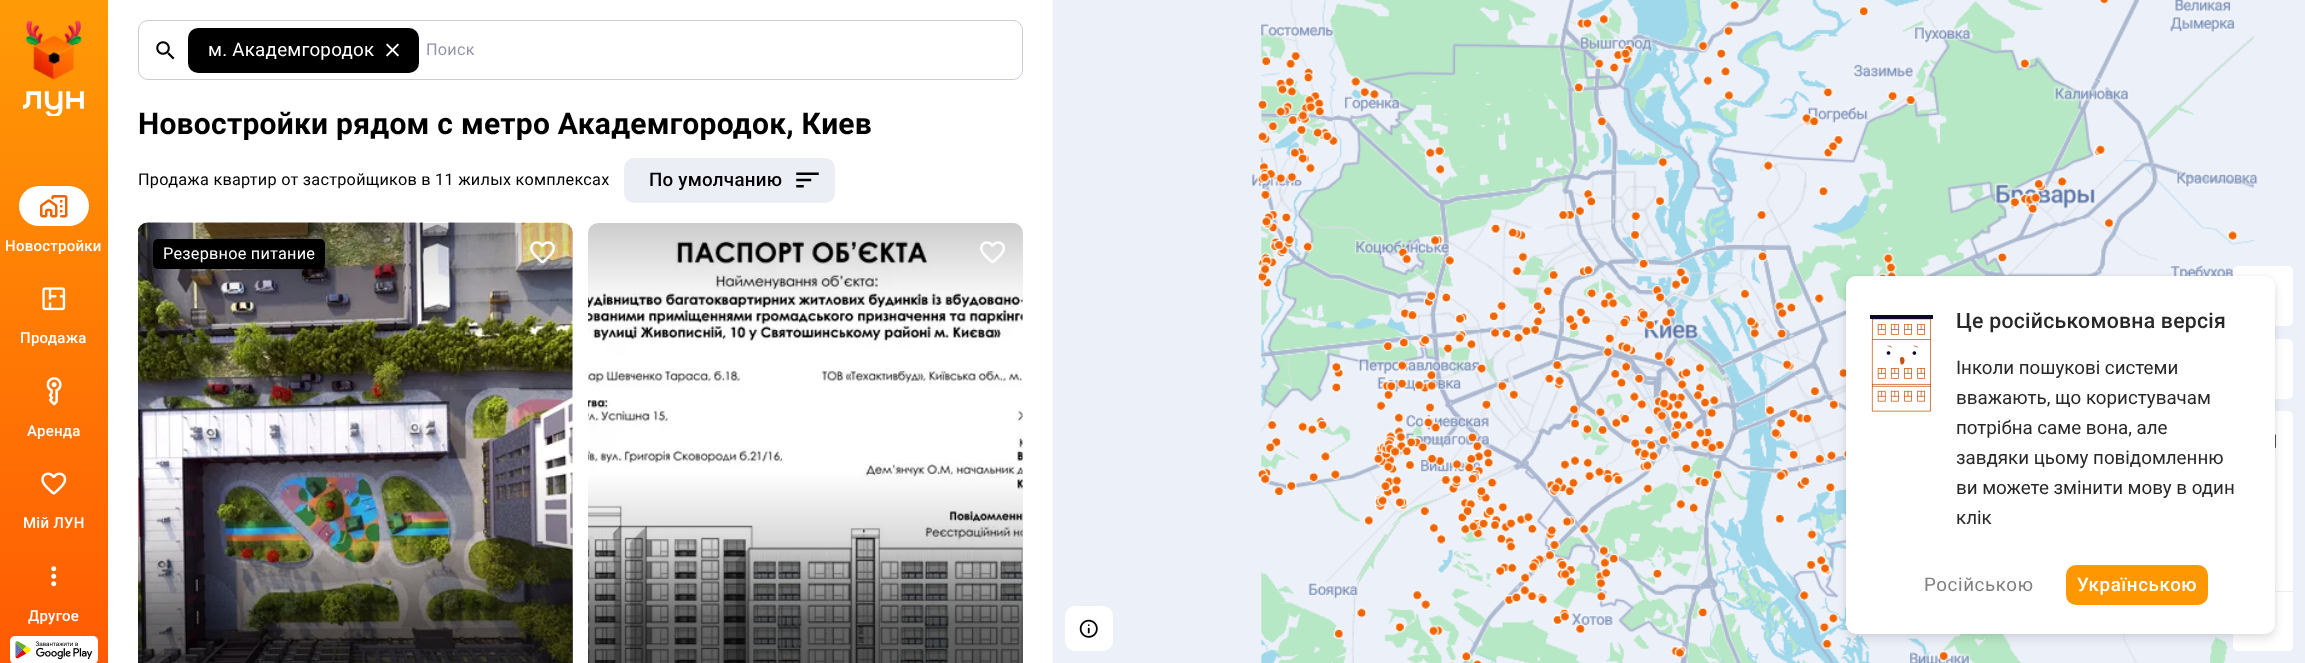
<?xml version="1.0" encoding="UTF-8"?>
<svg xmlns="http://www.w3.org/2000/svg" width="2305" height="663">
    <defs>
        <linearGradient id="g1" gradientUnits="userSpaceOnUse" x1="355" y1="222" x2="355" y2="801"><stop offset="0" stop-color="#000000" stop-opacity="0.2"/><stop offset="0.15" stop-color="#000000" stop-opacity="0"/><stop offset="0.43" stop-color="#000000" stop-opacity="0"/><stop offset="0.55" stop-color="#000000" stop-opacity="0.15"/><stop offset="0.69" stop-color="#000000" stop-opacity="0.6"/><stop offset="1" stop-color="#000000" stop-opacity="0.8"/></linearGradient>
        <linearGradient id="g2" gradientUnits="userSpaceOnUse" x1="805" y1="222" x2="805" y2="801"><stop offset="0" stop-color="#000000" stop-opacity="0.2"/><stop offset="0.15" stop-color="#000000" stop-opacity="0"/><stop offset="0.43" stop-color="#000000" stop-opacity="0"/><stop offset="0.55" stop-color="#000000" stop-opacity="0.15"/><stop offset="0.69" stop-color="#000000" stop-opacity="0.6"/><stop offset="1" stop-color="#000000" stop-opacity="0.8"/></linearGradient>
        <linearGradient id="g3" gradientUnits="userSpaceOnUse" x1="54" y1="0" x2="54" y2="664"><stop offset="0" stop-color="#FF9B06"/><stop offset="1" stop-color="#FF5A03"/></linearGradient>
        <filter id="blur1" x="-50%" y="-200%" width="200%" height="500%"><feGaussianBlur stdDeviation="5"/></filter>
        <filter id="blur2" x="-50%" y="-200%" width="200%" height="500%"><feGaussianBlur stdDeviation="2.5"/></filter>
    </defs>
    <rect width="100%" height="100%" fill="#FFFFFF"/>
    <rect x="138.5" y="20.5" width="321" height="59" rx="9.5" fill="none" stroke="#CACCD8"/>
    <rect x="138" y="19" width="885" height="62" rx="10" fill="#FFFFFF"/>
    <rect x="138.5" y="20.5" width="884" height="59" rx="9.5" fill="none" stroke="#CACCD8"/>
    <image x="156" y="41" width="19" height="19" href="img_01.png"/>
    <rect x="188" y="28" width="231" height="45" rx="10" fill="#000000"/>
    <text x="208" y="56" font-family="Roboto" font-size="18.75" letter-spacing="0.25" fill="#FFFFFF">м. Академгородок</text>
    <image x="386" y="43" width="13" height="14" href="img_02.png"/>
    <text x="426" y="55" font-family="Roboto" font-size="16.25" letter-spacing="0.25" fill="#9396A8">Поиск</text>
    <text x="138" y="134" font-family="Roboto" font-size="30" font-weight="700" letter-spacing="0.25" fill="#000000">Новостройки рядом с метро Академгородок, Киев</text>
    <text x="138" y="185" font-family="Roboto" font-size="16.25" letter-spacing="0.25" fill="#000000">Продажа квартир от застройщиков в 11 жилых комплексах</text>
    <rect x="624" y="158" width="211" height="45" rx="10" fill="#EBEEF4"/>
    <text x="649" y="186" font-family="Roboto" font-size="18.75" font-weight="500" letter-spacing="0.25" fill="#000000">По умолчанию</text>
    <image x="796" y="172" width="23" height="16" href="img_03.png"/>
    <image x="138" y="222" width="435" height="441" href="img_04.png"/>
    <rect x="138" y="223" width="435" height="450" rx="10" fill="url(#g1)"/>
    <rect x="153" y="239" width="172" height="30" rx="5" fill="#000000"/>
    <text x="163" y="259" font-family="Roboto" font-size="16.25" letter-spacing="0.25" fill="#FFFFFF">Резервное питание</text>
    <image x="530" y="241" width="25" height="23" href="img_05.png"/>
    <image x="588" y="240" width="435" height="423" href="img_06.png"/>
    <rect x="588" y="223" width="435" height="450" rx="10" fill="url(#g2)"/>
    <image x="980" y="241" width="25" height="23" href="img_07.png"/>
    <image x="1052" y="0" width="1253" height="663" href="img_08.png"/>
    <rect x="1065" y="606" width="48" height="45" rx="10" fill="#FFFFFF"/>
    <image x="1079" y="619" width="19" height="19" href="img_09.png"/>
    <rect x="2233" y="266" width="60" height="60" rx="5" fill="#FFFFFF"/>
    <rect x="2233" y="339" width="60" height="60" rx="5" fill="#FFFFFF"/>
    <path d="M 2238 411 H 2288 C 2291 411 2293 413 2293 416 V 471 H 2233 V 416 C 2233 413 2235 411 2238 411 Z" fill="#FFFFFF"/>
    <image x="2275" y="434" width="1" height="15" href="img_10.png"/>
    <rect x="2275" y="471" width="18" height="60" fill="#FFFFFF"/>
    <path d="M 2233 531 H 2293 V 646 C 2293 649 2291 651 2288 651 H 2238 C 2235 651 2233 649 2233 646 Z" fill="#FFFFFF"/>
    <path d="M 2233 591 H 2293 V 646 C 2293 649 2291 651 2288 651 H 2238 C 2235 651 2233 649 2233 646 Z" fill="#FFFFFF"/>
    <rect x="2275" y="591" width="18" height="1" fill="#EDEDED"/>
    <rect x="0" y="0" width="108" height="663" fill="url(#g3)"/>
    <image x="25" y="20" width="57" height="60" href="img_11.png"/>
    <image x="23" y="91" width="61" height="25" href="img_12.png"/>
    <rect x="19" y="186" width="70" height="40" rx="20" fill="#FFFFFF"/>
    <image x="40" y="195" width="28" height="23" href="img_13.png"/>
    <text x="5" y="251" font-family="Roboto" font-size="15" font-weight="500" letter-spacing="0.25" fill="#FFFFFF">Новостройки</text>
    <image x="42" y="287" width="24" height="24" href="img_14.png"/>
    <text x="20" y="343" font-family="Roboto" font-size="15" font-weight="500" letter-spacing="0.25" fill="#FFFFFF">Продажа</text>
    <image x="46" y="377" width="16" height="29" href="img_15.png"/>
    <text x="27" y="436" font-family="Roboto" font-size="15" font-weight="500" letter-spacing="0.25" fill="#FFFFFF">Аренда</text>
    <image x="41" y="472" width="26" height="23" href="img_16.png"/>
    <text x="23" y="528" font-family="Roboto" font-size="15" font-weight="500" letter-spacing="0.25" fill="#FFFFFF">Мій ЛУН</text>
    <image x="51" y="566" width="6" height="21" href="img_17.png"/>
    <text x="28" y="621" font-family="Roboto" font-size="15" font-weight="500" letter-spacing="0.25" fill="#FFFFFF">Другое</text>
    <rect x="10" y="636" width="88" height="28" rx="5" fill="#FFFFFF"/>
    <image x="15" y="641" width="78" height="19" href="img_18.png"/>
    <rect x="1846" y="281" width="429" height="358" rx="10" fill="#000000" fill-opacity="0.1" filter="url(#blur1)"/>
    <rect x="1846" y="276" width="429" height="358" rx="10" fill="#000000" fill-opacity="0.05" filter="url(#blur2)"/>
    <rect x="1846" y="276" width="429" height="358" rx="10" fill="#FFFFFF"/>
    <image x="1870" y="315" width="63" height="97" href="img_19.png"/>
    <text x="1956" y="328" font-family="Roboto" font-size="21.25" font-weight="500" letter-spacing="0.25" fill="#282828">Це російськомовна версія</text>
    <text font-family="Roboto" font-size="18.75" fill="#282828">
        <tspan x="1956" y="374">Інколи пошукові системи</tspan>
        <tspan x="1956" y="404">вважають, що користувачам</tspan>
        <tspan x="1956" y="434">потрібна саме вона, але</tspan>
        <tspan x="1956" y="464">завдяки цьому повідомленню</tspan>
        <tspan x="1956" y="494">ви можете змінити мову в один</tspan>
        <tspan x="1956" y="524">клік</tspan>
    </text>
    <text x="1924" y="591" font-family="Roboto" font-size="18.75" letter-spacing="0.6" fill="#808080">Російською</text>
    <rect x="2066" y="565" width="142" height="40" rx="10" fill="#FF9800"/>
    <text x="2077" y="591" font-family="Roboto" font-size="18.75" font-weight="500" letter-spacing="0.6" fill="#FFFFFF">Українською</text>
</svg>
